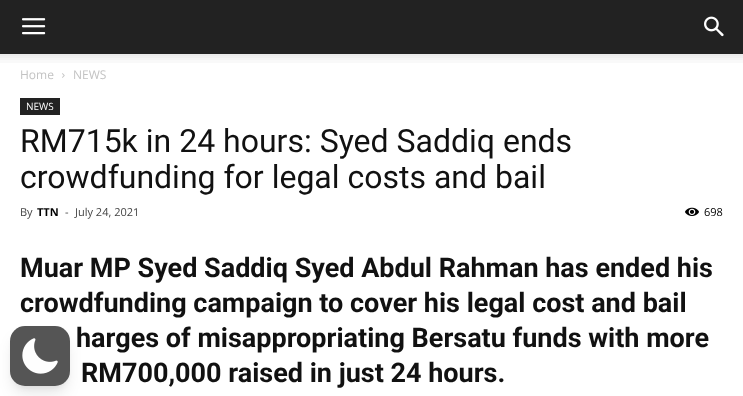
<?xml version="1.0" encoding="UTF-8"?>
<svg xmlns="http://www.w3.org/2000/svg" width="743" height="396">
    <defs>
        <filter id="blur1" x="-50%" y="-200%" width="200%" height="500%"><feGaussianBlur stdDeviation="3"/></filter>
        <filter id="blur2" x="-50%" y="-200%" width="200%" height="500%"><feGaussianBlur stdDeviation="7.5"/></filter>
    </defs>
    <rect width="100%" height="100%" fill="#FFFFFF"/>
    <rect x="0" y="0" width="743" height="54" fill="#222222"/>
    <image x="22" y="18" width="24" height="17" href="img_01.png"/>
    <image x="704" y="16" width="20" height="21" href="img_02.png"/>
    <image x="0" y="54" width="743" height="9" href="img_03.png"/>
    <text x="20" y="79" font-family="Open Sans" font-size="12" fill="#C3C3C3">Home</text>
    <image x="62" y="73" width="3" height="5" href="img_04.png"/>
    <text x="73" y="79" font-family="Open Sans" font-size="12" fill="#C3C3C3">NEWS</text>
    <rect x="20" y="98" width="40" height="17" fill="#222222"/>
    <text x="26" y="110" font-family="Open Sans" font-size="10" fill="#FFFFFF">NEWS</text>
    <text font-family="Roboto" font-size="32" fill="#111111">
        <tspan x="20" y="152">RM715k in 24 hours: Syed Saddiq ends</tspan>
        <tspan x="20" y="188">crowdfunding for legal costs and bail</tspan>
    </text>
    <text x="20" y="216" font-family="Open Sans" font-size="11" fill="#444444">By</text>
    <text x="37" y="216" font-family="Open Sans" font-size="11" font-weight="700" fill="#000000">TTN</text>
    <text x="65" y="216" font-family="Open Sans" font-size="11" fill="#444444">-</text>
    <text x="75" y="216" font-family="Open Sans" font-size="11" fill="#444444">July 24, 2021</text>
    <image x="685" y="207" width="14" height="9" href="img_05.png"/>
    <text x="704" y="216" font-family="Open Sans" font-size="11" fill="#000000">698</text>
    <text font-family="Roboto" font-size="27" font-weight="700" fill="#111111">
        <tspan x="20" y="277">Muar MP Syed Saddiq Syed Abdul Rahman has ended his</tspan>
        <tspan x="20" y="312">crowdfunding campaign to cover his legal cost and bail</tspan>
    </text>
    <text x="76" y="347" font-family="Roboto" font-size="27" font-weight="700" fill="#111111">harges of misappropriating Bersatu funds with more</text>
    <text x="81" y="382" font-family="Roboto" font-size="27" font-weight="700" fill="#111111">RM700,000 raised in just 24 hours.</text>
    <rect x="14" y="334" width="52" height="52" rx="11" fill="#000000" fill-opacity="0.1" filter="url(#blur1)"/>
    <rect x="13" y="339" width="54" height="54" rx="12" fill="#000000" fill-opacity="0.1" filter="url(#blur2)"/>
    <rect x="10" y="326" width="60" height="60" rx="15" fill="#555555"/>
    <image x="22" y="338" width="36" height="36" href="img_06.png"/>
</svg>
